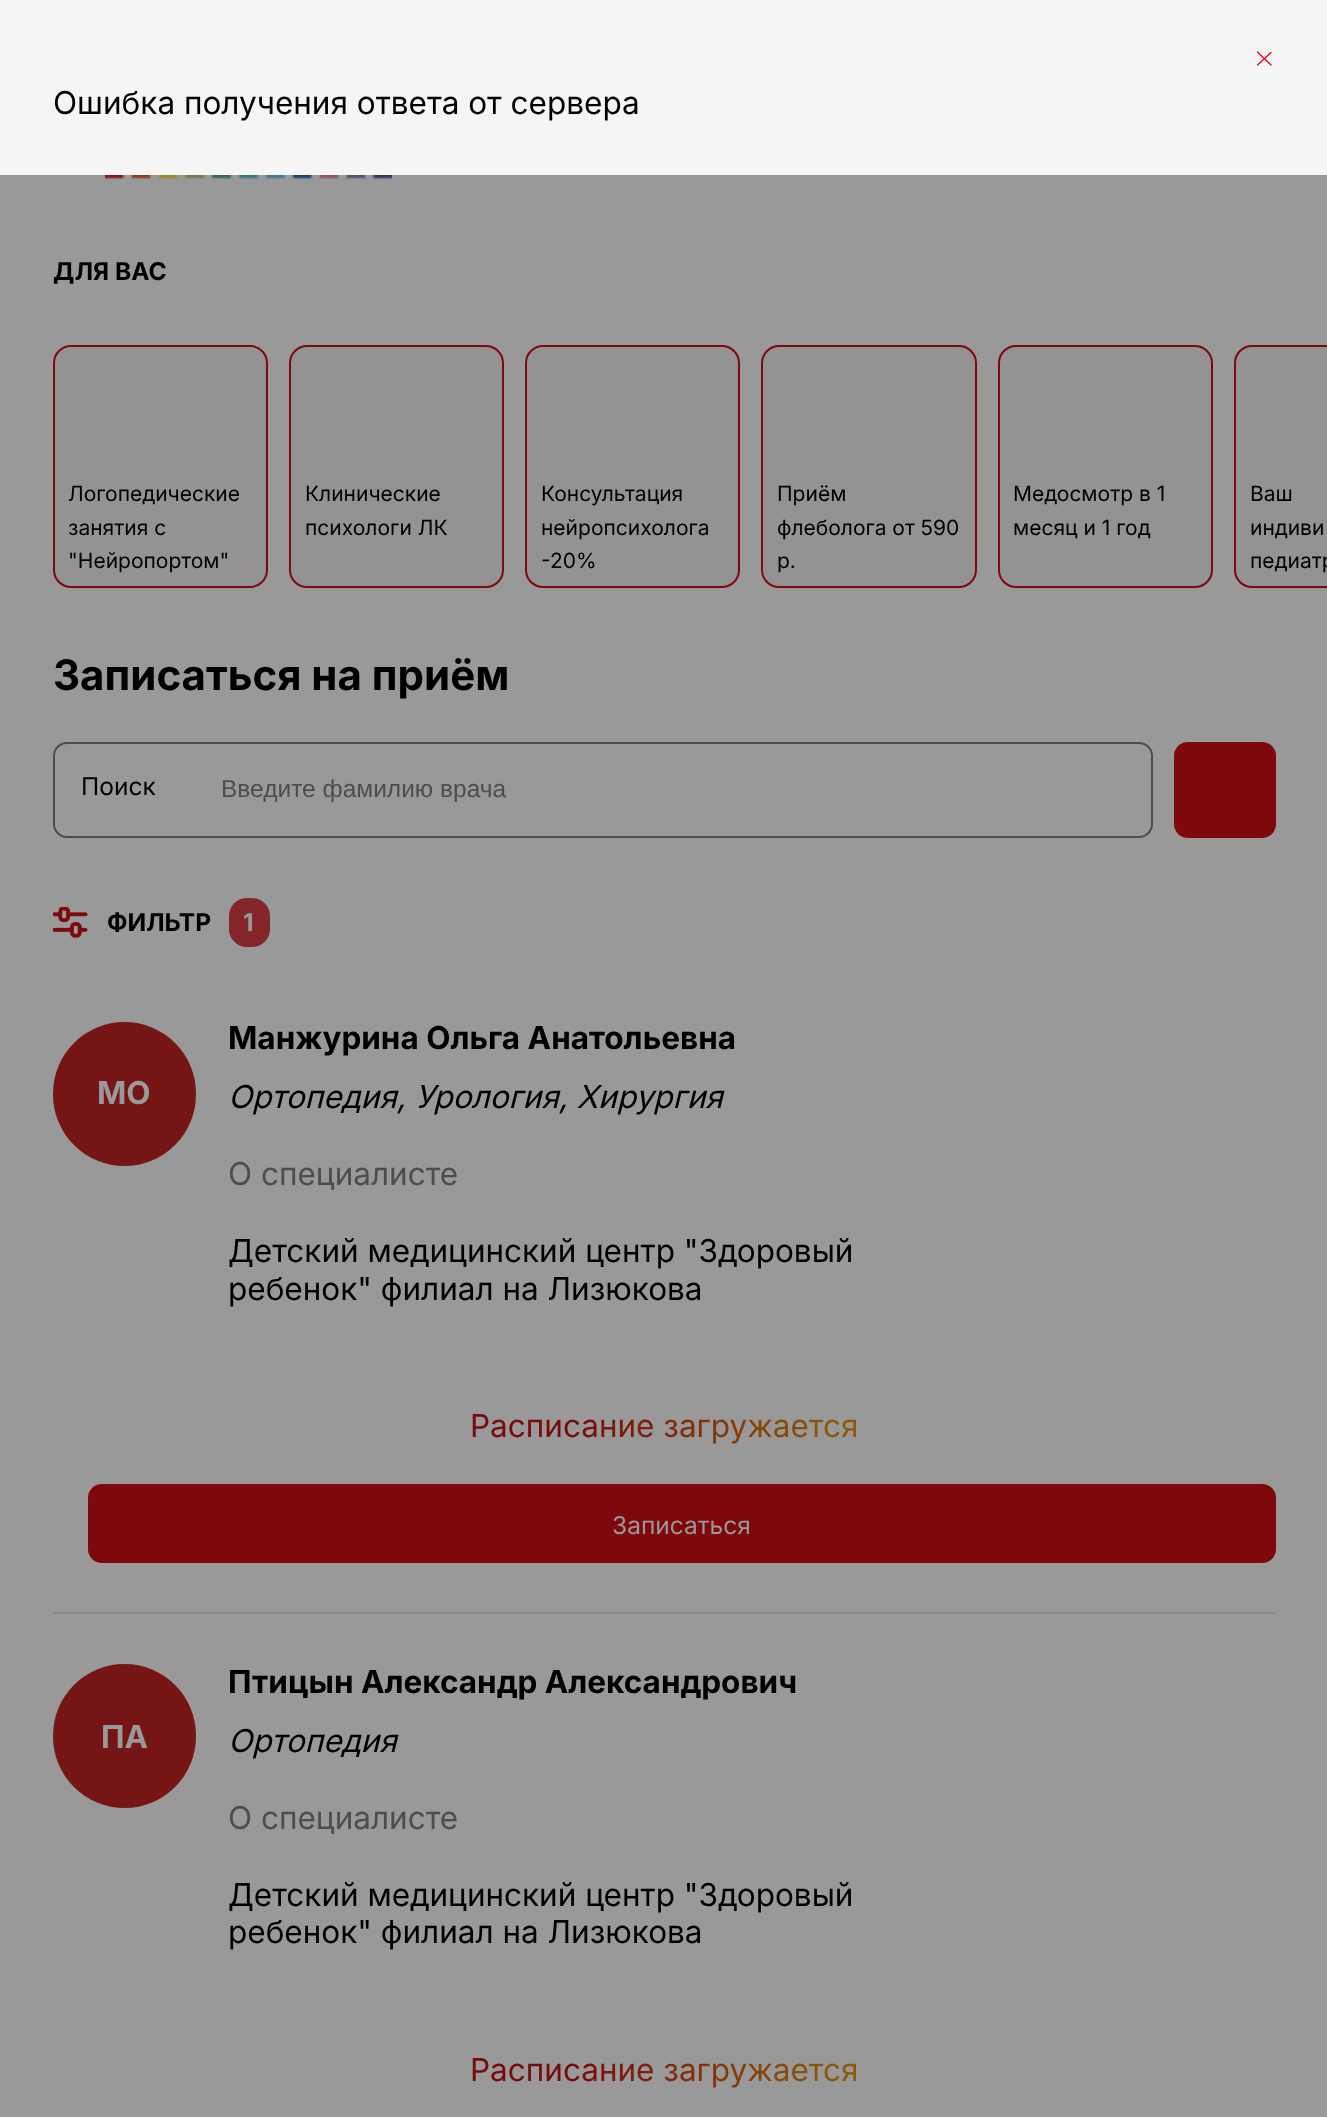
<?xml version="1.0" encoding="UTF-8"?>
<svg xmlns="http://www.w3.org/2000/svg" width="1327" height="2117">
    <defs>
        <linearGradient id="g1" gradientUnits="userSpaceOnUse" x1="470" y1="1426" x2="858" y2="1426"><stop offset="0.26" stop-color="#770A0C"/><stop offset="0.94" stop-color="#8B5908"/></linearGradient>
        <linearGradient id="g2" gradientUnits="userSpaceOnUse" x1="470" y1="2070" x2="858" y2="2070"><stop offset="0.26" stop-color="#770A0C"/><stop offset="0.94" stop-color="#8B5908"/></linearGradient>
    </defs>
    <rect width="100%" height="100%" fill="#999999"/>
    <rect x="0" y="0" width="1327" height="175" fill="#F5F5F5"/>
    <path d="M 1257.5 65 L 1271 52.5 M 1257.5 52 L 1271 65" fill="none" stroke="#D30D15" stroke-width="1.3" stroke-linecap="round" stroke-linejoin="round"/>
    <text x="53" y="114" font-family="Inter" font-size="31.5" fill="#000000">Ошибка получения ответа от сервера</text>
    <image x="105" y="175" width="287" height="4" href="img_01.png"/>
    <text x="53" y="280" font-family="Inter" font-size="24.5" font-weight="700" fill="#000000">ДЛЯ ВАС</text>
    <rect x="54" y="346" width="213" height="241" rx="17" fill="#939393" stroke="#7F080D" stroke-width="2"/>
    <text font-family="Inter" font-size="21" fill="#000000">
        <tspan x="68" y="501">Логопедические</tspan>
        <tspan x="68" y="535">занятия с</tspan>
        <tspan x="68" y="568">"Нейропортом"</tspan>
    </text>
    <rect x="290" y="346" width="213" height="241" rx="17" fill="#939393" stroke="#7F080D" stroke-width="2"/>
    <text font-family="Inter" font-size="21" fill="#000000">
        <tspan x="305" y="501">Клинические</tspan>
        <tspan x="305" y="535">психологи ЛК</tspan>
    </text>
    <rect x="526" y="346" width="213" height="241" rx="17" fill="#939393" stroke="#7F080D" stroke-width="2"/>
    <text font-family="Inter" font-size="21" fill="#000000">
        <tspan x="541" y="501">Консультация</tspan>
        <tspan x="541" y="535">нейропсихолога</tspan>
        <tspan x="541" y="568">-20%</tspan>
    </text>
    <rect x="762" y="346" width="214" height="241" rx="17" fill="#939393" stroke="#7F080D" stroke-width="2"/>
    <text font-family="Inter" font-size="21" fill="#000000">
        <tspan x="777" y="501">Приём</tspan>
        <tspan x="777" y="535">флеболога от 590</tspan>
        <tspan x="777" y="568">р.</tspan>
    </text>
    <rect x="999" y="346" width="213" height="241" rx="17" fill="#939393" stroke="#7F080D" stroke-width="2"/>
    <text font-family="Inter" font-size="21" fill="#000000">
        <tspan x="1013" y="501">Медосмотр в 1</tspan>
        <tspan x="1013" y="535">месяц и 1 год</tspan>
    </text>
    <path d="M 1252 345 H 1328 V 588 H 1252 C 1242 588 1234 580 1234 570 V 363 C 1234 353 1242 345 1252 345 Z" fill="#939393"/>
    <rect x="1235" y="346" width="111" height="241" rx="17" fill="none" stroke="#7F080D" stroke-width="2"/>
    <text font-family="Inter" font-size="21" fill="#000000">
        <tspan x="1250" y="501">Ваш</tspan>
        <tspan x="1250" y="535">индиви</tspan>
        <tspan x="1250" y="568">педиатр</tspan>
    </text>
    <text x="53" y="690" font-family="Inter" font-size="42" font-weight="700" fill="#000000">Записаться на приём</text>
    <rect x="54" y="743" width="1098" height="94" rx="13" fill="none" stroke="#4C4C4C" stroke-width="2"/>
    <text x="81" y="795" font-family="Inter" font-size="24.5" fill="#000000">Поиск</text>
    <text x="221" y="797" font-family="Liberation Sans" font-size="24.5" fill="#4D4D4D">Введите фамилию врача</text>
    <rect x="1174" y="742" width="102" height="96" rx="14" fill="#7F080D"/>
    <image x="53" y="907" width="35" height="31" href="img_02.png"/>
    <text x="107" y="931" font-family="Inter" font-size="24.5" font-weight="700" fill="#000000">ФИЛЬТР</text>
    <rect x="229" y="898" width="41" height="49" rx="18" fill="#842529"/>
    <text x="243" y="931" font-family="Inter" font-size="24.5" font-weight="700" fill="#999999">1</text>
    <rect x="53" y="1612" width="1223" height="2" fill="#888888"/>
    <rect x="53" y="1022" width="143" height="144" rx="71.5" fill="#761515"/>
    <text x="97" y="1104" font-family="Inter" font-size="31.5" font-weight="700" fill="#999999">МО</text>
    <text x="228" y="1049" font-family="Inter" font-size="31.5" font-weight="700" fill="#000000">Манжурина Ольга Анатольевна</text>
    <text x="228" y="1108" font-family="Inter" font-size="31.5" font-style="italic" fill="#000000">Ортопедия, Урология, Хирургия</text>
    <text x="228" y="1185" font-family="Inter" font-size="31.5" fill="#4D4D4D">О специалисте</text>
    <text font-family="Inter" font-size="31.5" fill="#000000">
        <tspan x="228" y="1262">Детский медицинский центр "Здоровый</tspan>
        <tspan x="228" y="1300">ребенок" филиал на Лизюкова</tspan>
    </text>
    <text x="470" y="1437" font-family="Inter" font-size="31.5" fill="url(#g1)">Расписание загружается</text>
    <rect x="88" y="1484" width="1188" height="79" rx="14" fill="#7F080D"/>
    <text x="612" y="1534" font-family="Inter" font-size="24.5" fill="#999999">Записаться</text>
    <rect x="53" y="1664" width="143" height="144" rx="71.5" fill="#761515"/>
    <text x="101" y="1748" font-family="Inter" font-size="31.5" font-weight="700" fill="#999999">ПА</text>
    <text x="228" y="1693" font-family="Inter" font-size="31.5" font-weight="700" fill="#000000">Птицын Александр Александрович</text>
    <text x="228" y="1752" font-family="Inter" font-size="31.5" font-style="italic" fill="#000000">Ортопедия</text>
    <text x="228" y="1829" font-family="Inter" font-size="31.5" fill="#4D4D4D">О специалисте</text>
    <text font-family="Inter" font-size="31.5" fill="#000000">
        <tspan x="228" y="1906">Детский медицинский центр "Здоровый</tspan>
        <tspan x="228" y="1943">ребенок" филиал на Лизюкова</tspan>
    </text>
    <text x="470" y="2081" font-family="Inter" font-size="31.5" fill="url(#g2)">Расписание загружается</text>
</svg>
